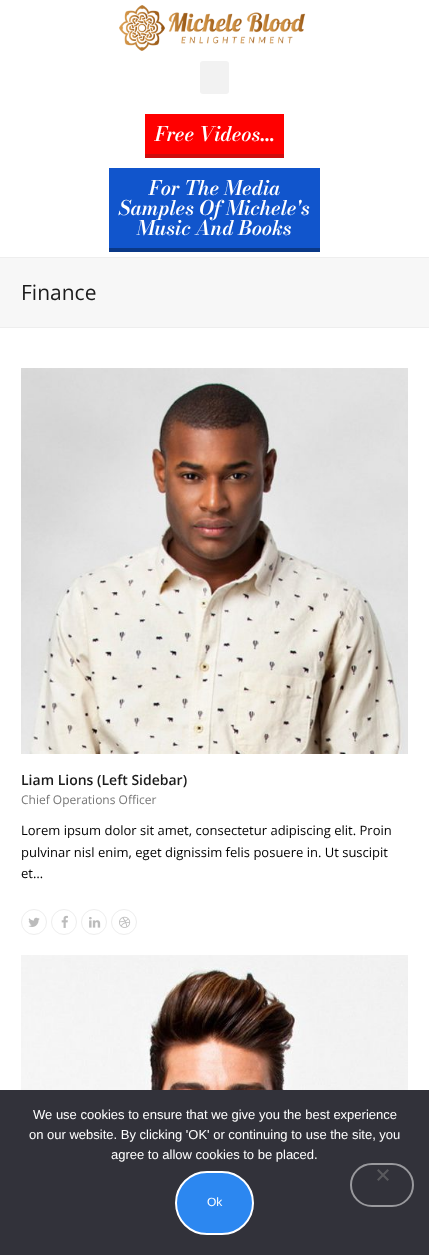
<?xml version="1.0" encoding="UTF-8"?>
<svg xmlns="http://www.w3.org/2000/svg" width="429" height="1255">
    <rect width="100%" height="100%" fill="#FFFFFF"/>
    <image x="119" y="5" width="187" height="46" href="img_01.png"/>
    <rect x="200" y="61" width="29" height="33" rx="3" fill="#F2F2F2"/>
    <rect x="145" y="114" width="139" height="40" fill="#FF0000"/>
    <rect x="145" y="154" width="139" height="4" fill="#CE0C0C"/>
    <text x="155" y="141" font-family="Bodoni Moda" font-size="20" font-weight="600" font-style="italic" fill="#FFFFFF">Free Videos...</text>
    <rect x="109" y="168" width="211" height="80" fill="#1155CC"/>
    <rect x="109" y="248" width="211" height="4" fill="#0A3887"/>
    <text x="149" y="195" font-family="Bodoni Moda" font-size="20" font-weight="600" font-style="italic" fill="#FFFFFF">For The Media</text>
    <text x="119" y="215" font-family="Bodoni Moda" font-size="20" font-weight="600" font-style="italic" fill="#FFFFFF">Samples Of Michele's</text>
    <text x="137" y="235" font-family="Bodoni Moda" font-size="20" font-weight="600" font-style="italic" fill="#FFFFFF">Music And Books</text>
    <rect x="0" y="258" width="429" height="69" fill="#F7F7F7"/>
    <rect x="0" y="257" width="429" height="1" fill="#EEEEEE"/>
    <rect x="0" y="327" width="429" height="1" fill="#EEEEEE"/>
    <text x="21" y="300" font-family="Open Sans" font-size="21" fill="#1B1B1B">Finance</text>
    <image x="21" y="368" width="387" height="386" href="img_02.png"/>
    <text x="21" y="785" font-family="Open Sans" font-size="14" font-weight="600" fill="#1B1B1B">Liam Lions (Left Sidebar)</text>
    <text x="21" y="804" font-family="Open Sans" font-size="12" fill="#777777">Chief Operations Officer</text>
    <text font-family="Open Sans" font-size="13" fill="#000000">
        <tspan x="21" y="835">Lorem ipsum dolor sit amet, consectetur adipiscing elit. Proin</tspan>
        <tspan x="21" y="857">pulvinar nisl enim, eget dignissim felis posuere in. Ut suscipit</tspan>
        <tspan x="21" y="878">et…</tspan>
    </text>
    <circle cx="34" cy="922" r="12.5" fill="none" stroke="#EEEEEE"/>
    <image x="28" y="917" width="12" height="10" href="img_03.png"/>
    <circle cx="64" cy="922" r="12.5" fill="none" stroke="#EEEEEE"/>
    <image x="61" y="915" width="7" height="13" href="img_04.png"/>
    <circle cx="94" cy="922" r="12.5" fill="none" stroke="#EEEEEE"/>
    <image x="89" y="917" width="12" height="11" href="img_05.png"/>
    <circle cx="124" cy="922" r="12.5" fill="none" stroke="#EEEEEE"/>
    <image x="119" y="916" width="12" height="12" href="img_06.png"/>
    <image x="21" y="955" width="387" height="135" href="img_07.png"/>
    <rect x="0" y="1090" width="429" height="165" fill="#32323A"/>
    <text x="33" y="1119" font-family="Liberation Sans" font-size="13" fill="#FFFFFF">We use cookies to ensure that we give you the best experience</text>
    <text x="29" y="1139" font-family="Liberation Sans" font-size="13" fill="#FFFFFF">on our website. By clicking 'OK' or continuing to use the site, you</text>
    <text x="111" y="1159" font-family="Liberation Sans" font-size="13" fill="#FFFFFF">agree to allow cookies to be placed.</text>
    <rect x="176" y="1172" width="77" height="62" rx="31" fill="#2C87F0" stroke="#FFFFFF" stroke-width="2"/>
    <text x="207" y="1206" font-family="Liberation Sans" font-size="12" fill="#FFFFFF">Ok</text>
    <rect x="351" y="1164" width="62" height="42" rx="21" fill="none" stroke="#99999D" stroke-width="2"/>
    <path d="M 387.5 1169 L 389 1170.5 L 378.5 1181 L 377 1179.5 Z" fill="#59595D"/>
    <path d="M 377 1170.5 L 378.5 1169 L 389 1179.5 L 387.5 1181 Z" fill="#59595D"/>
</svg>
